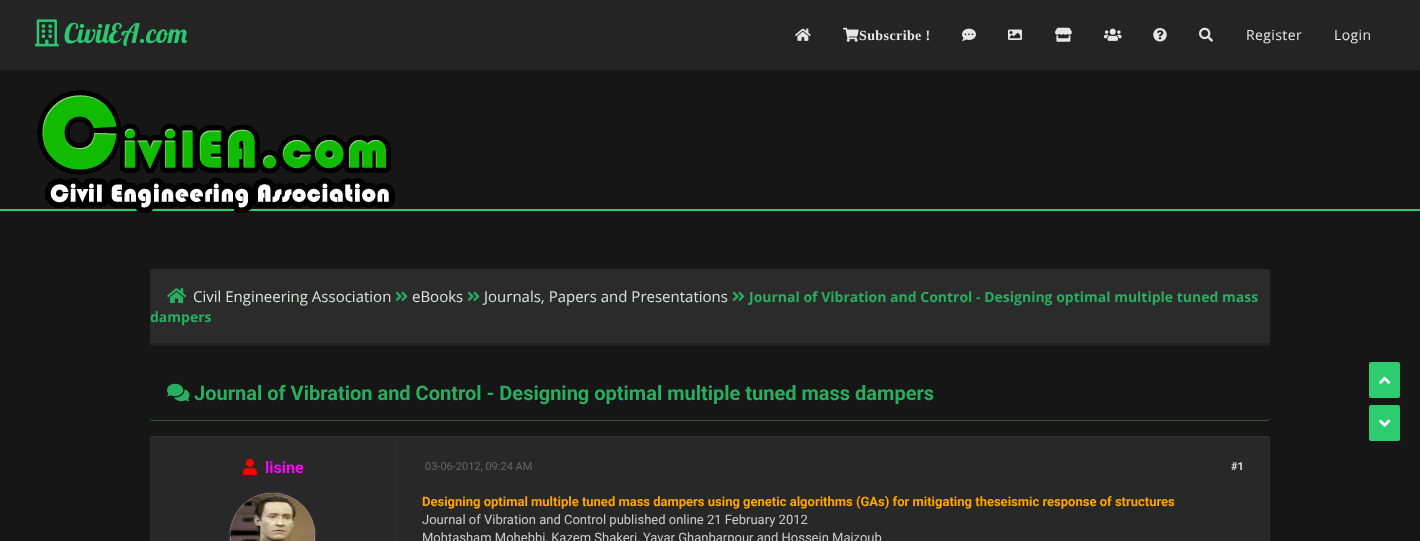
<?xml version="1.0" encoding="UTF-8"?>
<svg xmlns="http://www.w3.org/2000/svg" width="1420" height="541">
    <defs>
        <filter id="blur1" x="-50%" y="-200%" width="200%" height="500%"><feGaussianBlur stdDeviation="1"/></filter>
    </defs>
    <rect width="100%" height="100%" fill="#161616"/>
    <rect x="0" y="0" width="1420" height="70" fill="#242424"/>
    <image x="35" y="19" width="24" height="28" href="img_01.png"/>
    <text x="64" y="43" font-family="Lobster" font-size="27" fill="#2CC670">CivilEA.com</text>
    <image x="795" y="28" width="16" height="13" href="img_02.png"/>
    <image x="843" y="27" width="16" height="15" href="img_03.png"/>
    <text x="859" y="40" font-family="Liberation Serif" font-size="14" font-weight="700" letter-spacing="0.4" fill="#E6E6E6">Subscribe !</text>
    <image x="962" y="28" width="14" height="13" href="img_04.png"/>
    <image x="1008" y="29" width="14" height="11" href="img_05.png"/>
    <image x="1055" y="27" width="17" height="15" href="img_06.png"/>
    <image x="1104" y="28" width="18" height="13" href="img_07.png"/>
    <image x="1153" y="28" width="14" height="14" href="img_08.png"/>
    <image x="1199" y="27" width="14" height="15" href="img_09.png"/>
    <text x="1246" y="40" font-family="Open Sans" font-size="14" letter-spacing="0.4" fill="#E6E6E6">Register</text>
    <text x="1334" y="40" font-family="Open Sans" font-size="14" letter-spacing="0.4" fill="#E6E6E6">Login</text>
    <rect x="0" y="209" width="1420" height="2" fill="#2ECC71"/>
    <image x="37" y="90" width="358" height="123" href="img_10.png"/>
    <rect x="150" y="269" width="1120" height="77" rx="2" fill="#2B2B2B"/>
    <rect x="151" y="343" width="1118" height="3" fill="#202020"/>
    <image x="167" y="288" width="20" height="16" href="img_11.png"/>
    <text x="193" y="302" font-family="Open Sans" font-size="15" fill="#DCE3DF">Civil Engineering Association</text>
    <image x="395" y="291" width="13" height="10" href="img_12.png"/>
    <text x="412" y="302" font-family="Open Sans" font-size="15" fill="#DCE3DF">eBooks</text>
    <image x="467" y="291" width="13" height="10" href="img_12.png"/>
    <text x="484" y="302" font-family="Open Sans" font-size="15" fill="#DCE3DF">Journals, Papers and Presentations</text>
    <image x="732" y="291" width="13" height="10" href="img_12.png"/>
    <text x="749" y="302" font-family="Open Sans" font-size="14" font-weight="700" fill="#27AE60">Journal of Vibration and Control - Designing optimal multiple tuned mass</text>
    <text x="150" y="322" font-family="Open Sans" font-size="14" font-weight="700" fill="#27AE60">dampers</text>
    <path d="M 150 417 V 418 C 150 420 151 421 153 421 H 1267 C 1269 421 1270 420 1270 418 V 417 C 1270 419 1269 420 1267 420 H 153 C 151 420 150 419 150 417 Z" fill="#375E2F"/>
    <image x="167" y="383" width="23" height="19" href="img_13.png"/>
    <text x="194" y="400" font-family="Roboto" font-size="20" font-weight="700" fill="#27AE60">Journal of Vibration and Control - Designing optimal multiple tuned mass dampers</text>
    <rect x="150.5" y="436.5" width="1119" height="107" rx="1.5" fill="#282828" stroke="#303030"/>
    <rect x="396" y="437" width="1" height="104" fill="#303030"/>
    <image x="243" y="459" width="14" height="16" href="img_14.png"/>
    <text x="265" y="473" font-family="Roboto" font-size="16" font-weight="700" fill="#FF01FF">lisine</text>
    <rect x="230" y="493" width="85" height="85" rx="42.5" fill="#696969" filter="url(#blur1)"/>
    <circle cx="272.5" cy="535.5" r="42.5" fill="#FFFFFF"/>
    <image x="230" y="493" width="85" height="48" href="img_15.png"/>
    <text x="425" y="470" font-family="Roboto" font-size="11" fill="#666666">03-06-2012, 09:24 AM</text>
    <text x="1231" y="470" font-family="Roboto" font-size="11" font-weight="700" fill="#DCE3DF">#1</text>
    <text x="422" y="506" font-family="Roboto" font-size="13" font-weight="700" fill="#FFA500">Designing optimal multiple tuned mass dampers using genetic algorithms (GAs) for mitigating theseismic response of structures</text>
    <text font-family="Roboto" font-size="13" fill="#CCCCCC">
        <tspan x="422" y="524">Journal of Vibration and Control published online 21 February 2012</tspan>
        <tspan x="422" y="542">Mohtasham Mohebbi, Kazem Shakeri, Yavar Ghanbarpour and Hossein Majzoub</tspan>
    </text>
    <rect x="1369" y="362" width="31" height="36" rx="2" fill="#2ECC71"/>
    <image x="1379" y="376" width="12" height="8" href="img_16.png"/>
    <rect x="1369" y="405" width="31" height="36" rx="2" fill="#2ECC71"/>
    <image x="1379" y="419" width="12" height="8" href="img_17.png"/>
</svg>
